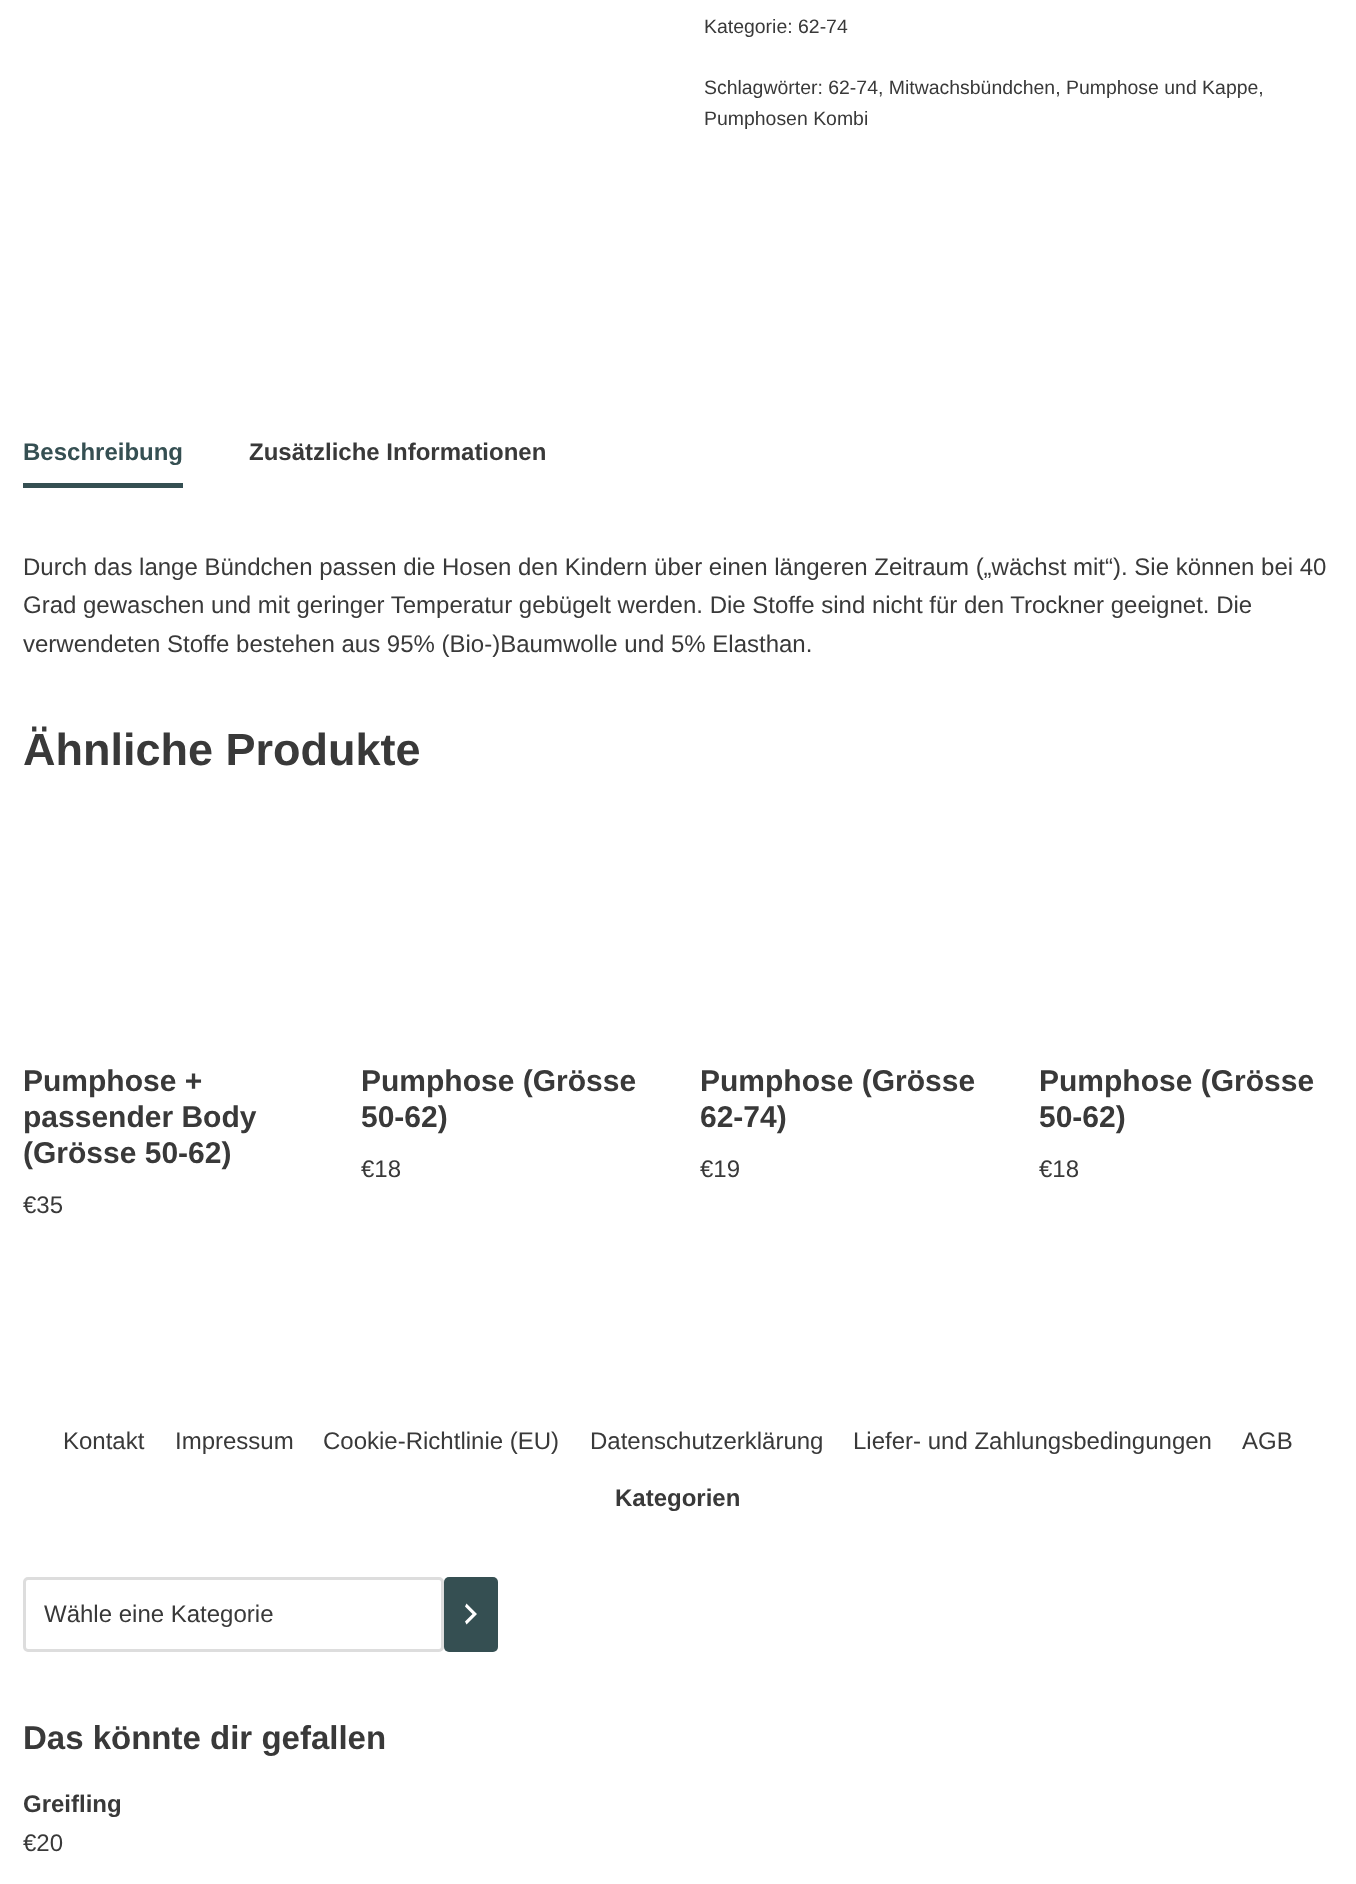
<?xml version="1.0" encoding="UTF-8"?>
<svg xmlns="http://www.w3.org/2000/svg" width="1356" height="1884">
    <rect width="100%" height="100%" fill="#FFFFFF"/>
    <text x="704" y="33" font-family="Liberation Sans" font-size="19.45" fill="#393939">Kategorie: 62-74</text>
    <text font-family="Liberation Sans" font-size="19.45" fill="#393939">
        <tspan x="704" y="94">Schlagwörter: 62-74, Mitwachsbündchen, Pumphose und Kappe,</tspan>
        <tspan x="704" y="125">Pumphosen Kombi</tspan>
    </text>
    <rect x="23" y="483" width="160" height="5" fill="#354F52"/>
    <text x="23" y="460" font-family="Liberation Sans" font-size="24" font-weight="700" fill="#354F52">Beschreibung</text>
    <text x="249" y="460" font-family="Liberation Sans" font-size="24" font-weight="700" fill="#393939">Zusätzliche Informationen</text>
    <text font-family="Liberation Sans" font-size="24" fill="#393939">
        <tspan x="23" y="575">Durch das lange Bündchen passen die Hosen den Kindern über einen längeren Zeitraum („wächst mit“). Sie können bei 40</tspan>
        <tspan x="23" y="613">Grad gewaschen und mit geringer Temperatur gebügelt werden. Die Stoffe sind nicht für den Trockner geeignet. Die</tspan>
        <tspan x="23" y="652">verwendeten Stoffe bestehen aus 95% (Bio-)Baumwolle und 5% Elasthan.</tspan>
    </text>
    <text x="23" y="765" font-family="Liberation Sans" font-size="45" font-weight="700" fill="#393939">Ähnliche Produkte</text>
    <text font-family="Liberation Sans" font-size="30" font-weight="700" fill="#393939">
        <tspan x="23" y="1091">Pumphose +</tspan>
        <tspan x="23" y="1127">passender Body</tspan>
        <tspan x="23" y="1163">(Grösse 50-62)</tspan>
    </text>
    <text x="23" y="1213" font-family="Liberation Sans" font-size="24" fill="#393939">€35</text>
    <text font-family="Liberation Sans" font-size="30" font-weight="700" fill="#393939">
        <tspan x="361" y="1091">Pumphose (Grösse</tspan>
        <tspan x="361" y="1127">50-62)</tspan>
    </text>
    <text x="361" y="1177" font-family="Liberation Sans" font-size="24" fill="#393939">€18</text>
    <text font-family="Liberation Sans" font-size="30" font-weight="700" fill="#393939">
        <tspan x="700" y="1091">Pumphose (Grösse</tspan>
        <tspan x="700" y="1127">62-74)</tspan>
    </text>
    <text x="700" y="1177" font-family="Liberation Sans" font-size="24" fill="#393939">€19</text>
    <text font-family="Liberation Sans" font-size="30" font-weight="700" fill="#393939">
        <tspan x="1039" y="1091">Pumphose (Grösse</tspan>
        <tspan x="1039" y="1127">50-62)</tspan>
    </text>
    <text x="1039" y="1177" font-family="Liberation Sans" font-size="24" fill="#393939">€18</text>
    <text x="63" y="1449" font-family="Liberation Sans" font-size="24" fill="#393939">Kontakt</text>
    <text x="175" y="1449" font-family="Liberation Sans" font-size="24" fill="#393939">Impressum</text>
    <text x="323" y="1449" font-family="Liberation Sans" font-size="24" fill="#393939">Cookie-Richtlinie (EU)</text>
    <text x="590" y="1449" font-family="Liberation Sans" font-size="24" fill="#393939">Datenschutzerklärung</text>
    <text x="853" y="1449" font-family="Liberation Sans" font-size="24" fill="#393939">Liefer- und Zahlungsbedingungen</text>
    <text x="1242" y="1449" font-family="Liberation Sans" font-size="24" fill="#393939">AGB</text>
    <text x="615" y="1506" font-family="Liberation Sans" font-size="24" font-weight="700" fill="#393939">Kategorien</text>
    <rect x="24.5" y="1578.5" width="418" height="72" rx="3.5" fill="none" stroke="#DDDDDD" stroke-width="3"/>
    <text x="44" y="1622" font-family="Liberation Sans" font-size="24" fill="#393939">Wähle eine Kategorie</text>
    <rect x="444" y="1577" width="54" height="75" rx="5" fill="#354F52"/>
    <path d="M 465 1621.5 L 472.5 1614 L 465 1606.5 L 466.5 1603.5 L 477 1614 L 466.5 1624.5 Z" fill="#FFFFFF"/>
    <text x="23" y="1749" font-family="Liberation Sans" font-size="33" font-weight="700" fill="#393939">Das könnte dir gefallen</text>
    <text x="23" y="1812" font-family="Liberation Sans" font-size="24" font-weight="700" fill="#393939">Greifling</text>
    <text x="23" y="1851" font-family="Liberation Sans" font-size="24" fill="#393939">€20</text>
</svg>
